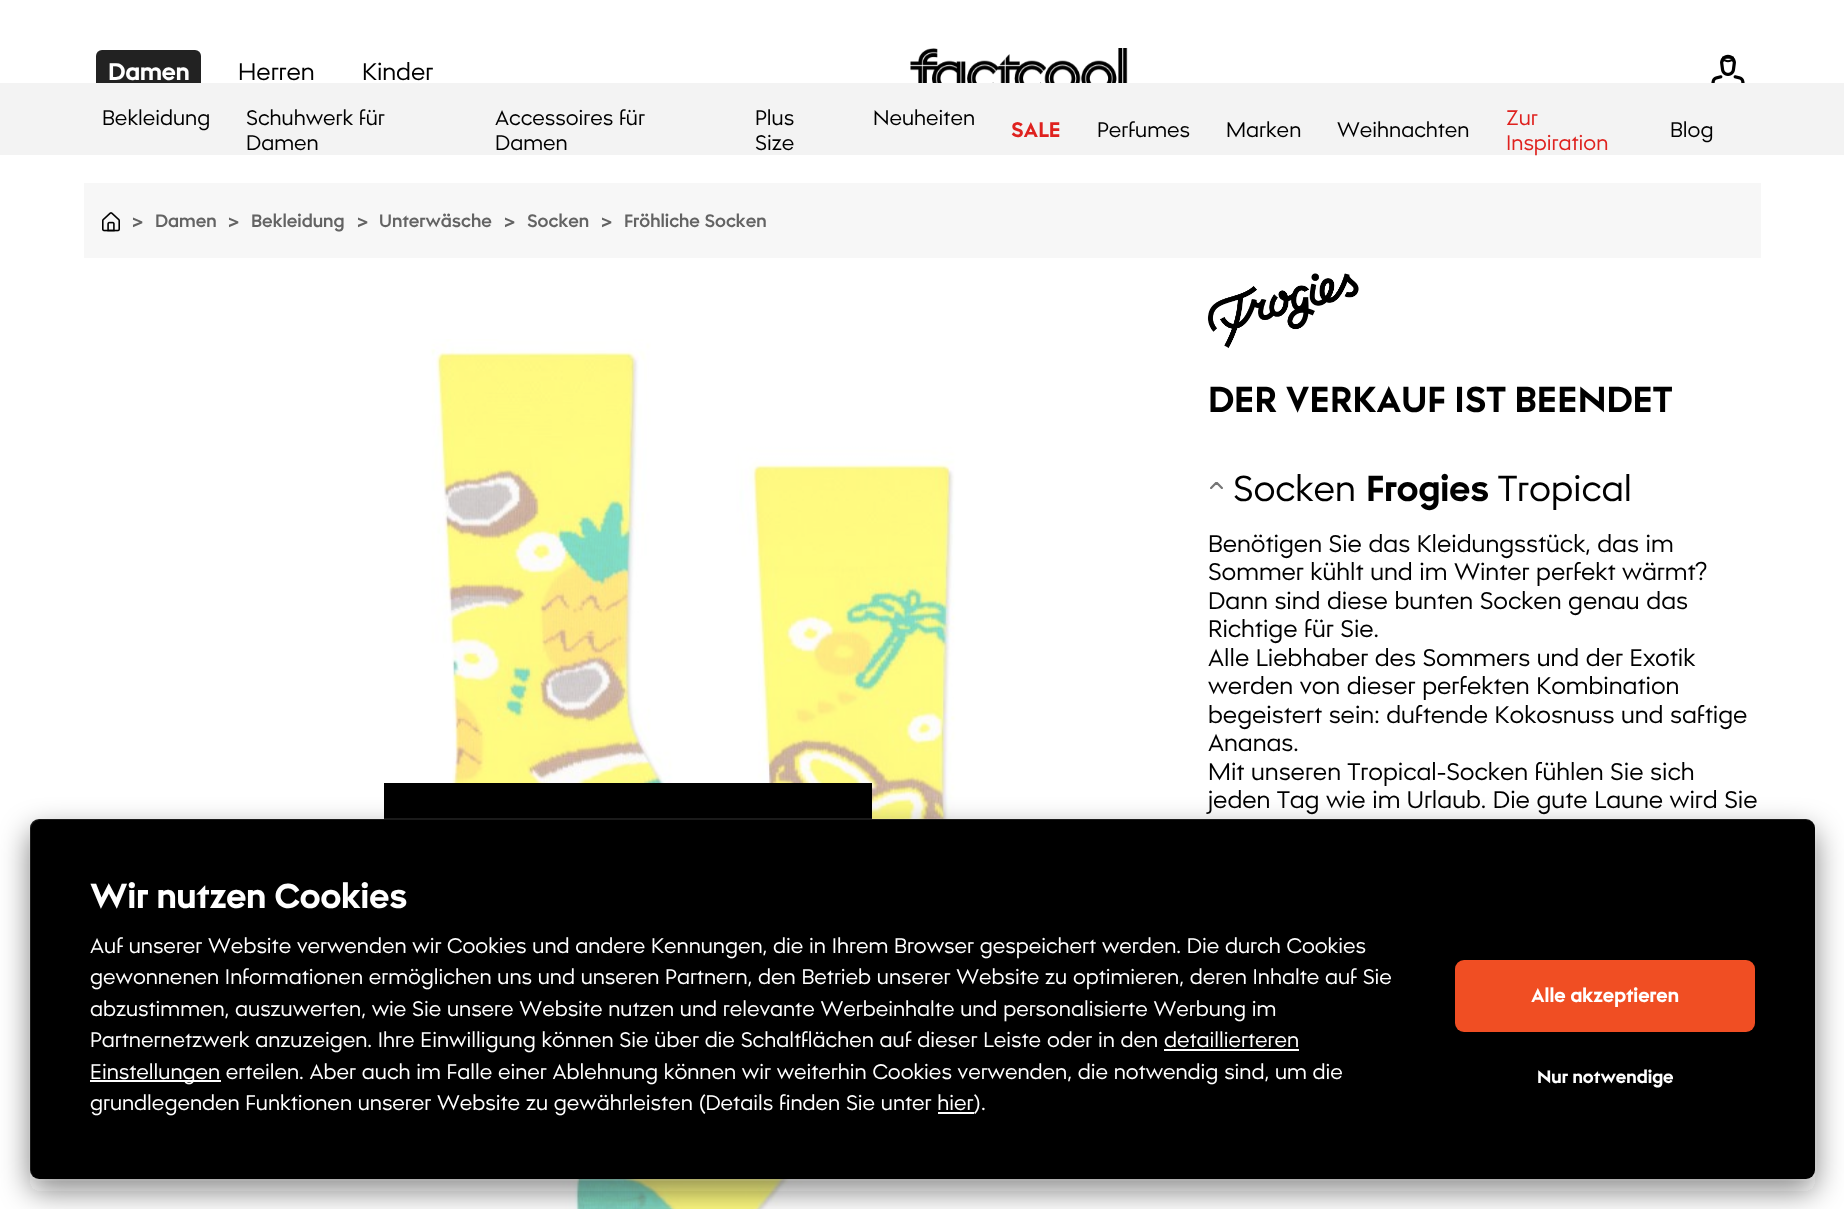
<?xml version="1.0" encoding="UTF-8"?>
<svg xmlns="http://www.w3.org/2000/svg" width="1844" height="1209">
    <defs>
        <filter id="blur1" x="-50%" y="-200%" width="200%" height="500%"><feGaussianBlur stdDeviation="15"/></filter>
    </defs>
    <rect width="100%" height="100%" fill="#FFFFFF"/>
    <image x="910" y="48" width="218" height="35" href="img_01.png"/>
    <image x="1711" y="54" width="34" height="29" href="img_02.png"/>
    <text x="362" y="80" font-family="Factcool" font-size="24" fill="#000000">Kinder</text>
    <rect x="96" y="50" width="105" height="46" rx="6" fill="#222222"/>
    <text x="108" y="80" font-family="Factcool" font-size="24" font-weight="700" fill="#FFFFFF">Damen</text>
    <rect x="0" y="83" width="1844" height="72" fill="#F3F3F3"/>
    <text x="102" y="125" font-family="Factcool" font-size="21" fill="#000000">Bekleidung</text>
    <text font-family="Factcool" font-size="21" fill="#000000">
        <tspan x="246" y="125">Schuhwerk für</tspan>
        <tspan x="246" y="150">Damen</tspan>
    </text>
    <text font-family="Factcool" font-size="21" fill="#000000">
        <tspan x="495" y="125">Accessoires für</tspan>
        <tspan x="495" y="150">Damen</tspan>
    </text>
    <text font-family="Factcool" font-size="21" fill="#000000">
        <tspan x="755" y="125">Plus</tspan>
        <tspan x="755" y="150">Size</tspan>
    </text>
    <text x="873" y="125" font-family="Factcool" font-size="21" fill="#000000">Neuheiten</text>
    <text x="1011" y="137" font-family="Factcool" font-size="21" font-weight="700" fill="#DF221F">SALE</text>
    <text x="1097" y="137" font-family="Factcool" font-size="21" fill="#000000">Perfumes</text>
    <text x="1226" y="137" font-family="Factcool" font-size="21" fill="#000000">Marken</text>
    <text x="1337" y="137" font-family="Factcool" font-size="21" fill="#000000">Weihnachten</text>
    <text font-family="Factcool" font-size="21" fill="#DF221F">
        <tspan x="1506" y="125">Zur</tspan>
        <tspan x="1506" y="150">Inspiration</tspan>
    </text>
    <text x="1670" y="137" font-family="Factcool" font-size="21" fill="#000000">Blog</text>
    <text x="238" y="80" font-family="Factcool" font-size="24" fill="#000000">Herren</text>
    <rect x="84" y="183" width="1677" height="75" fill="#F7F7F7"/>
    <image x="102" y="212" width="18" height="20" href="img_03.png"/>
    <text x="132" y="227" font-family="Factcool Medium" font-size="18" font-weight="500" fill="#636363">&gt;</text>
    <text x="155" y="227" font-family="Factcool Medium" font-size="18" font-weight="500" fill="#636363">Damen</text>
    <text x="228" y="227" font-family="Factcool Medium" font-size="18" font-weight="500" fill="#636363">&gt;</text>
    <text x="251" y="227" font-family="Factcool Medium" font-size="18" font-weight="500" fill="#636363">Bekleidung</text>
    <text x="357" y="227" font-family="Factcool Medium" font-size="18" font-weight="500" fill="#636363">&gt;</text>
    <text x="379" y="227" font-family="Factcool Medium" font-size="18" font-weight="500" fill="#636363">Unterwäsche</text>
    <text x="504" y="227" font-family="Factcool Medium" font-size="18" font-weight="500" fill="#636363">&gt;</text>
    <text x="527" y="227" font-family="Factcool Medium" font-size="18" font-weight="500" fill="#636363">Socken</text>
    <text x="601" y="227" font-family="Factcool Medium" font-size="18" font-weight="500" fill="#636363">&gt;</text>
    <text x="624" y="227" font-family="Factcool Medium" font-size="18" font-weight="500" fill="#636363">Fröhliche Socken</text>
    <image x="258" y="339" width="742" height="870" href="img_04.png"/>
    <rect x="384" y="783" width="488" height="36" fill="#000000"/>
    <image x="1207" y="273" width="152" height="75" href="img_05.png"/>
    <text x="1208" y="412" font-family="Factcool" font-size="36" font-weight="700" fill="#000000">DER VERKAUF IST BEENDET</text>
    <image x="1210" y="482" width="13" height="7" href="img_06.png"/>
    <text x="1233" y="501" font-family="Factcool" font-size="36" fill="#000000">Socken</text>
    <text x="1366" y="501" font-family="Factcool" font-size="36" font-weight="700" fill="#000000">Frogies</text>
    <text x="1498" y="501" font-family="Factcool" font-size="36" fill="#000000">Tropical</text>
    <text font-family="Factcool" font-size="24" fill="#000000">
        <tspan x="1208" y="552">Benötigen Sie das Kleidungsstück, das im</tspan>
        <tspan x="1208" y="580">Sommer kühlt und im Winter perfekt wärmt?</tspan>
        <tspan x="1208" y="609">Dann sind diese bunten Socken genau das</tspan>
        <tspan x="1208" y="637">Richtige für Sie.</tspan>
        <tspan x="1208" y="666">Alle Liebhaber des Sommers und der Exotik</tspan>
        <tspan x="1208" y="694">werden von dieser perfekten Kombination</tspan>
        <tspan x="1208" y="723">begeistert sein: duftende Kokosnuss und saftige</tspan>
        <tspan x="1208" y="751">Ananas.</tspan>
        <tspan x="1208" y="780">Mit unseren Tropical-Socken fühlen Sie sich</tspan>
        <tspan x="1208" y="808">jeden Tag wie im Urlaub. Die gute Laune wird Sie</tspan>
    </text>
    <rect x="30" y="831" width="1785" height="360" rx="9" fill="#111113" fill-opacity="0.5" filter="url(#blur1)"/>
    <rect x="30" y="819" width="1785" height="360" rx="9" fill="#000000"/>
    <rect x="30" y="819" width="1786" height="361" rx="10" fill="none" stroke="#FFFFFF" stroke-opacity="0.1" stroke-width="2"/>
    <text x="90" y="908" font-family="Factcool" font-size="34.5" font-weight="700" fill="#FFFFFF">Wir nutzen Cookies</text>
    <text font-family="Factcool" font-size="21" fill="#FFFFFF">
        <tspan x="90" y="953">Auf unserer Website verwenden wir Cookies und andere Kennungen, die in Ihrem Browser gespeichert werden. Die durch Cookies</tspan>
        <tspan x="90" y="984">gewonnenen Informationen ermöglichen uns und unseren Partnern, den Betrieb unserer Website zu optimieren, deren Inhalte auf Sie</tspan>
        <tspan x="90" y="1016">abzustimmen, auszuwerten, wie Sie unsere Website nutzen und relevante Werbeinhalte und personalisierte Werbung im</tspan>
        <tspan x="90" y="1047">Partnernetzwerk anzuzeigen. Ihre Einwilligung können Sie über die Schaltflächen auf dieser Leiste oder in den detaillierteren</tspan>
    </text>
    <rect x="90" y="1080" width="131" height="2" fill="#FFFFFF"/>
    <text x="90" y="1079" font-family="Factcool" font-size="21" fill="#FFFFFF">Einstellungen erteilen. Aber auch im Falle einer Ablehnung können wir weiterhin Cookies verwenden, die notwendig sind, um die</text>
    <rect x="1164" y="1049" width="135" height="2" fill="#FFFFFF"/>
    <text x="90" y="1110" font-family="Factcool" font-size="21" fill="#FFFFFF">grundlegenden Funktionen unserer Website zu gewährleisten (Details finden Sie unter hier</text>
    <rect x="938" y="1112" width="36" height="2" fill="#FFFFFF"/>
    <text x="974" y="1110" font-family="Factcool" font-size="21" fill="#FFFFFF">).</text>
    <rect x="1455" y="960" width="300" height="72" rx="9" fill="#F04E23"/>
    <text x="1531" y="1002" font-family="Factcool" font-size="19.5" font-weight="700" fill="#FFFFFF">Alle akzeptieren</text>
    <text x="1537" y="1083" font-family="Factcool" font-size="18" font-weight="700" fill="#FFFFFF">Nur notwendige</text>
</svg>
